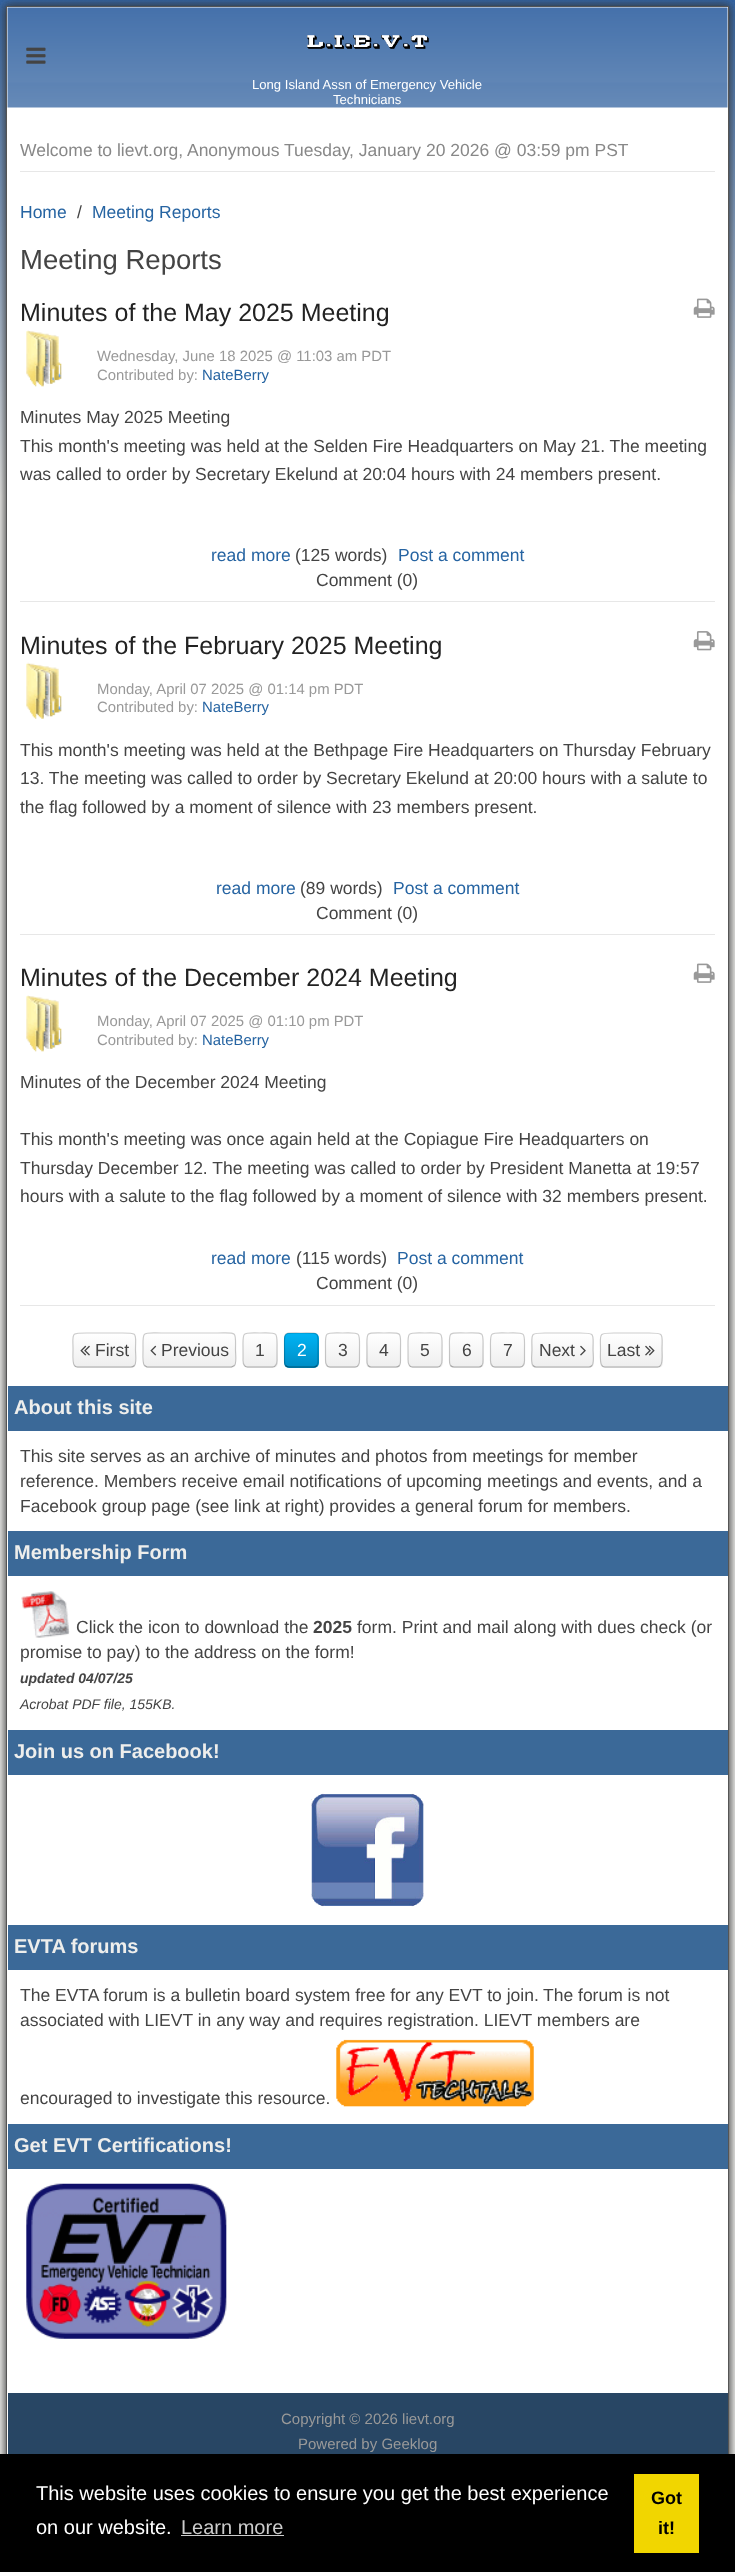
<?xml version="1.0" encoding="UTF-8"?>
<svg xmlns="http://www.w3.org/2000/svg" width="735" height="2572">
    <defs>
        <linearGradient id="g1" gradientUnits="userSpaceOnUse" x1="367" y1="0" x2="368" y2="2481"><stop offset="0" stop-color="#3465A4"/><stop offset="0.2" stop-color="#EEEEEC"/></linearGradient>
        <filter id="blur1" x="-50%" y="-200%" width="200%" height="500%"><feGaussianBlur stdDeviation="5"/></filter>
        <linearGradient id="g2" gradientUnits="userSpaceOnUse" x1="104" y1="1333" x2="104" y2="1368"><stop offset="0" stop-color="#FFFFFF"/><stop offset="1" stop-color="#EEEEEE"/></linearGradient>
        <linearGradient id="g3" gradientUnits="userSpaceOnUse" x1="189" y1="1333" x2="189" y2="1368"><stop offset="0" stop-color="#FFFFFF"/><stop offset="1" stop-color="#EEEEEE"/></linearGradient>
        <linearGradient id="g4" gradientUnits="userSpaceOnUse" x1="260" y1="1333" x2="260" y2="1368"><stop offset="0" stop-color="#FFFFFF"/><stop offset="1" stop-color="#EEEEEE"/></linearGradient>
        <linearGradient id="g5" gradientUnits="userSpaceOnUse" x1="301" y1="1333" x2="301" y2="1368"><stop offset="0" stop-color="#00B4F5"/><stop offset="1" stop-color="#008DC5"/></linearGradient>
        <linearGradient id="g6" gradientUnits="userSpaceOnUse" x1="343" y1="1333" x2="343" y2="1368"><stop offset="0" stop-color="#FFFFFF"/><stop offset="1" stop-color="#EEEEEE"/></linearGradient>
        <linearGradient id="g7" gradientUnits="userSpaceOnUse" x1="384" y1="1333" x2="384" y2="1368"><stop offset="0" stop-color="#FFFFFF"/><stop offset="1" stop-color="#EEEEEE"/></linearGradient>
        <linearGradient id="g8" gradientUnits="userSpaceOnUse" x1="425" y1="1333" x2="425" y2="1368"><stop offset="0" stop-color="#FFFFFF"/><stop offset="1" stop-color="#EEEEEE"/></linearGradient>
        <linearGradient id="g9" gradientUnits="userSpaceOnUse" x1="466" y1="1333" x2="466" y2="1368"><stop offset="0" stop-color="#FFFFFF"/><stop offset="1" stop-color="#EEEEEE"/></linearGradient>
        <linearGradient id="g10" gradientUnits="userSpaceOnUse" x1="508" y1="1333" x2="508" y2="1368"><stop offset="0" stop-color="#FFFFFF"/><stop offset="1" stop-color="#EEEEEE"/></linearGradient>
        <linearGradient id="g11" gradientUnits="userSpaceOnUse" x1="563" y1="1333" x2="563" y2="1368"><stop offset="0" stop-color="#FFFFFF"/><stop offset="1" stop-color="#EEEEEE"/></linearGradient>
        <linearGradient id="g12" gradientUnits="userSpaceOnUse" x1="631" y1="1333" x2="631" y2="1368"><stop offset="0" stop-color="#FFFFFF"/><stop offset="1" stop-color="#EEEEEE"/></linearGradient>
    </defs>
    <rect width="100%" height="100%" fill="#FFFFFF"/>
    <rect x="0" y="0" width="735" height="2454" fill="url(#g1)"/>
    <rect x="5" y="5" width="725" height="2471" fill="#333333" filter="url(#blur1)"/>
    <rect x="7" y="7" width="721" height="2447" fill="#FFFFFF"/>
    <rect x="6.5" y="6.5" width="722" height="2468" fill="none" stroke="#555555"/>
    <image x="7" y="7" width="721" height="101" href="img_01.png"/>
    <image x="26" y="47" width="20" height="17" href="img_02.png"/>
    <image x="307" y="35" width="122" height="14" href="img_03.png"/>
    <text x="252" y="89" font-family="Liberation Sans" font-size="13.1" fill="#FFFFFF">Long Island Assn of Emergency Vehicle</text>
    <text x="333" y="104" font-family="Liberation Sans" font-size="13.1" fill="#FFFFFF">Technicians</text>
    <rect x="20" y="171" width="695" height="1" fill="#E7E7E7"/>
    <text x="20" y="156" font-family="Liberation Sans" font-size="17.5" fill="#888888">Welcome to lievt.org, Anonymous Tuesday, January 20 2026 @ 03:59 pm PST</text>
    <text x="20" y="218" font-family="Liberation Sans" font-size="17.5" fill="#2664A2">Home</text>
    <text x="77" y="218" font-family="Liberation Sans" font-size="17.5" fill="#444444">/</text>
    <text x="92" y="218" font-family="Liberation Sans" font-size="17.5" fill="#2664A2">Meeting Reports</text>
    <text x="20" y="269" font-family="Liberation Sans" font-size="27.5" fill="#444444">Meeting Reports</text>
    <rect x="20" y="601" width="695" height="1" fill="#E7E7E7"/>
    <text x="20" y="321" font-family="Liberation Sans" font-size="25" fill="#222222">Minutes of the May 2025 Meeting</text>
    <image x="693" y="298" width="22" height="20" href="img_04.png"/>
    <text font-family="Liberation Sans" font-size="14.9" fill="#999999">
        <tspan x="97" y="361">Wednesday, June 18 2025 @ 11:03 am PDT</tspan>
        <tspan x="97" y="380">Contributed by:</tspan>
    </text>
    <text x="202" y="380" font-family="Liberation Sans" font-size="14.9" fill="#2664A2">NateBerry</text>
    <image x="26" y="330" width="36" height="57" href="img_05.png"/>
    <text font-family="Liberation Sans" font-size="17.5" fill="#444444">
        <tspan x="20" y="423">Minutes May 2025 Meeting</tspan>
        <tspan x="20" y="452">This month's meeting was held at the Selden Fire Headquarters on May 21. The meeting</tspan>
        <tspan x="20" y="480">was called to order by Secretary Ekelund at 20:04 hours with 24 members present.</tspan>
    </text>
    <text x="211" y="561" font-family="Liberation Sans" font-size="17.5" fill="#2664A2">read more</text>
    <text x="295" y="561" font-family="Liberation Sans" font-size="17.5" fill="#444444">(125 words)</text>
    <text x="398" y="561" font-family="Liberation Sans" font-size="17.5" fill="#2664A2">Post a comment</text>
    <text x="316" y="586" font-family="Liberation Sans" font-size="17.5" fill="#444444">Comment (0)</text>
    <rect x="20" y="934" width="695" height="1" fill="#E7E7E7"/>
    <text x="20" y="654" font-family="Liberation Sans" font-size="25" fill="#222222">Minutes of the February 2025 Meeting</text>
    <image x="693" y="631" width="22" height="20" href="img_06.png"/>
    <text font-family="Liberation Sans" font-size="14.9" fill="#999999">
        <tspan x="97" y="694">Monday, April 07 2025 @ 01:14 pm PDT</tspan>
        <tspan x="97" y="712">Contributed by:</tspan>
    </text>
    <text x="202" y="712" font-family="Liberation Sans" font-size="14.9" fill="#2664A2">NateBerry</text>
    <image x="26" y="662" width="36" height="57" href="img_07.png"/>
    <text font-family="Liberation Sans" font-size="17.5" fill="#444444">
        <tspan x="20" y="756">This month's meeting was held at the Bethpage Fire Headquarters on Thursday February</tspan>
        <tspan x="20" y="784">13. The meeting was called to order by Secretary Ekelund at 20:00 hours with a salute to</tspan>
        <tspan x="20" y="813">the flag followed by a moment of silence with 23 members present.</tspan>
    </text>
    <text x="216" y="894" font-family="Liberation Sans" font-size="17.5" fill="#2664A2">read more</text>
    <text x="300" y="894" font-family="Liberation Sans" font-size="17.5" fill="#444444">(89 words)</text>
    <text x="393" y="894" font-family="Liberation Sans" font-size="17.5" fill="#2664A2">Post a comment</text>
    <text x="316" y="919" font-family="Liberation Sans" font-size="17.5" fill="#444444">Comment (0)</text>
    <rect x="20" y="1305" width="695" height="1" fill="#E7E7E7"/>
    <text x="20" y="986" font-family="Liberation Sans" font-size="25" fill="#222222">Minutes of the December 2024 Meeting</text>
    <image x="693" y="963" width="22" height="20" href="img_04.png"/>
    <text font-family="Liberation Sans" font-size="14.9" fill="#999999">
        <tspan x="97" y="1026">Monday, April 07 2025 @ 01:10 pm PDT</tspan>
        <tspan x="97" y="1045">Contributed by:</tspan>
    </text>
    <text x="202" y="1045" font-family="Liberation Sans" font-size="14.9" fill="#2664A2">NateBerry</text>
    <image x="26" y="995" width="36" height="57" href="img_05.png"/>
    <text x="20" y="1088" font-family="Liberation Sans" font-size="17.5" fill="#444444">Minutes of the December 2024 Meeting</text>
    <text font-family="Liberation Sans" font-size="17.5" fill="#444444">
        <tspan x="20" y="1145">This month's meeting was once again held at the Copiague Fire Headquarters on</tspan>
        <tspan x="20" y="1174">Thursday December 12. The meeting was called to order by President Manetta at 19:57</tspan>
        <tspan x="20" y="1202">hours with a salute to the flag followed by a moment of silence with 32 members present.</tspan>
    </text>
    <text x="211" y="1264" font-family="Liberation Sans" font-size="17.5" fill="#2664A2">read more</text>
    <text x="296" y="1264" font-family="Liberation Sans" font-size="17.5" fill="#444444">(115 words)</text>
    <text x="397" y="1264" font-family="Liberation Sans" font-size="17.5" fill="#2664A2">Post a comment</text>
    <text x="316" y="1289" font-family="Liberation Sans" font-size="17.5" fill="#444444">Comment (0)</text>
    <rect x="73" y="1333" width="63" height="35" rx="5" fill="url(#g2)"/>
    <path d="M 134.5 1365.5 C 133.5 1366.5 132.5 1367 131 1367 H 77.5 C 76.5 1367 75 1366.5 74.5 1365.5" fill="none" stroke="#A7A7A7" stroke-width="1.2"/>
    <path d="M 74.5 1365.5 C 72 1363 73 1353 73 1350 C 73 1333 70 1333 86.5 1333 H 122.5 C 138.5 1333 135.5 1333 135.5 1350 C 135.5 1353 137 1363 134.5 1365.5" fill="none" stroke="#000000" stroke-opacity="0.2" stroke-width="1.2"/>
    <image x="80" y="1345" width="10" height="11" href="img_08.png"/>
    <text x="95" y="1356" font-family="Liberation Sans" font-size="17.5" fill="#444444">First</text>
    <rect x="143" y="1333" width="93" height="35" rx="5" fill="url(#g3)"/>
    <path d="M 234.5 1365.5 L 231.5 1367 H 147 L 144.5 1365.5" fill="none" stroke="#A7A7A7" stroke-width="1.2"/>
    <path d="M 144.5 1365.5 C 142 1363 143 1353 143 1350 C 143 1330.5 141 1333 161.5 1333 H 217.5 C 238 1333 235.5 1330.5 235.5 1350 C 235.5 1353 237 1363 234.5 1365.5" fill="none" stroke="#000000" stroke-opacity="0.2" stroke-width="1.2"/>
    <image x="150" y="1345" width="7" height="11" href="img_09.png"/>
    <text x="161" y="1356" font-family="Liberation Sans" font-size="17.5" fill="#444444">Previous</text>
    <rect x="243" y="1333" width="35" height="35" rx="5" fill="url(#g4)"/>
    <path d="M 275.5 1365.5 C 275 1366.5 273.5 1367 272.5 1367 H 247.5 C 246.5 1367 245 1366.5 244.5 1365.5" fill="none" stroke="#A7A7A7" stroke-width="1.2"/>
    <path d="M 244.5 1365.5 C 242.5 1363.5 243 1360.5 243 1358.5 V 1350 C 243 1331 241 1333 260 1333 C 279 1333 277 1331 277 1350 V 1358.5 C 277 1360.5 277.5 1363.5 275.5 1365.5" fill="none" stroke="#000000" stroke-opacity="0.2" stroke-width="1.2"/>
    <text x="255" y="1356" font-family="Liberation Sans" font-size="17.5" fill="#444444">1</text>
    <rect x="284" y="1333" width="35" height="35" rx="5" fill="url(#g5)"/>
    <path d="M 317 1365.5 C 316 1366.5 315 1367 314 1367 H 289 C 287.5 1367 286.5 1366.5 285.5 1365.5" fill="none" stroke="#005677" stroke-width="1.2"/>
    <path d="M 285.5 1365.5 C 284 1363.5 284.5 1360.5 284.5 1358.5 V 1350 C 284.5 1331 282 1333 301 1333 C 320.5 1333 318 1331 318 1350 V 1358.5 C 318 1360.5 318.5 1363.5 317 1365.5" fill="none" stroke="#000000" stroke-opacity="0.2" stroke-width="1.2"/>
    <text x="297" y="1356" font-family="Liberation Sans" font-size="17.5" fill="#FFFFFF">2</text>
    <rect x="325" y="1333" width="35" height="35" rx="5" fill="url(#g6)"/>
    <path d="M 358 1365.5 C 357.5 1366.5 356 1367 355 1367 H 330 C 329 1367 327.5 1366.5 327 1365.5" fill="none" stroke="#A7A7A7" stroke-width="1.2"/>
    <path d="M 327 1365.5 C 325 1363.5 325.5 1360.5 325.5 1358.5 V 1350 C 325.5 1331 323.5 1333 342.5 1333 C 361.5 1333 359.5 1331 359.5 1350 V 1358.5 C 359.5 1360.5 360 1363.5 358 1365.5" fill="none" stroke="#000000" stroke-opacity="0.2" stroke-width="1.2"/>
    <text x="338" y="1356" font-family="Liberation Sans" font-size="17.5" fill="#444444">3</text>
    <rect x="366" y="1333" width="35" height="35" rx="5" fill="url(#g7)"/>
    <path d="M 399.5 1365.5 C 398.5 1366.5 397.5 1367 396 1367 H 371 C 370 1367 369 1366.5 368 1365.5" fill="none" stroke="#A7A7A7" stroke-width="1.2"/>
    <path d="M 368 1365.5 C 366.5 1363.5 367 1360.5 367 1358.5 V 1350 C 367 1331 364.5 1333 384 1333 C 403 1333 400.5 1331 400.5 1350 V 1358.5 C 400.5 1360.5 401 1363.5 399.5 1365.5" fill="none" stroke="#000000" stroke-opacity="0.2" stroke-width="1.2"/>
    <text x="379" y="1356" font-family="Liberation Sans" font-size="17.5" fill="#444444">4</text>
    <rect x="408" y="1333" width="35" height="35" rx="5" fill="url(#g8)"/>
    <path d="M 440.5 1365.5 C 440 1366.5 438.5 1367 437.5 1367 H 412.5 C 411.5 1367 410 1366.5 409.5 1365.5" fill="none" stroke="#A7A7A7" stroke-width="1.2"/>
    <path d="M 409.5 1365.5 C 407.5 1363.5 408 1360.5 408 1358.5 V 1350 C 408 1331 406 1333 425 1333 C 444 1333 442 1331 442 1350 V 1358.5 C 442 1360.5 442.5 1363.5 440.5 1365.5" fill="none" stroke="#000000" stroke-opacity="0.2" stroke-width="1.2"/>
    <text x="420" y="1356" font-family="Liberation Sans" font-size="17.5" fill="#444444">5</text>
    <rect x="449" y="1333" width="35" height="35" rx="5" fill="url(#g9)"/>
    <path d="M 482 1365.5 C 481 1366.5 480 1367 479 1367 H 454 C 452.5 1367 451.5 1366.5 450.5 1365.5" fill="none" stroke="#A7A7A7" stroke-width="1.2"/>
    <path d="M 450.5 1365.5 C 449 1363.5 449.5 1360.5 449.5 1358.5 V 1350 C 449.5 1331 447 1333 466 1333 C 485.5 1333 483 1331 483 1350 V 1358.5 C 483 1360.5 483.5 1363.5 482 1365.5" fill="none" stroke="#000000" stroke-opacity="0.2" stroke-width="1.2"/>
    <text x="462" y="1356" font-family="Liberation Sans" font-size="17.5" fill="#444444">6</text>
    <rect x="490" y="1333" width="35" height="35" rx="5" fill="url(#g10)"/>
    <path d="M 523 1365.5 C 522.5 1366.5 521 1367 520 1367 H 495 C 494 1367 492.5 1366.5 492 1365.5" fill="none" stroke="#A7A7A7" stroke-width="1.2"/>
    <path d="M 492 1365.5 C 490 1363.5 490.5 1360.5 490.5 1358.5 V 1350 C 490.5 1331 488.5 1333 507.5 1333 C 526.5 1333 524.5 1331 524.5 1350 V 1358.5 C 524.5 1360.5 525 1363.5 523 1365.5" fill="none" stroke="#000000" stroke-opacity="0.2" stroke-width="1.2"/>
    <text x="503" y="1356" font-family="Liberation Sans" font-size="17.5" fill="#444444">7</text>
    <rect x="531" y="1333" width="63" height="35" rx="5" fill="url(#g11)"/>
    <path d="M 592 1365.5 C 591 1366.5 590 1367 589 1367 H 536 C 535 1367 534 1366.5 533 1365.5" fill="none" stroke="#A7A7A7" stroke-width="1.2"/>
    <path d="M 533 1365.5 C 530.5 1363 532 1353 532 1350 C 532 1333.5 529 1333 545 1333 H 580 C 596 1333 593 1333.5 593 1350 C 593 1353 594.5 1363 592 1365.5" fill="none" stroke="#000000" stroke-opacity="0.2" stroke-width="1.2"/>
    <text x="539" y="1356" font-family="Liberation Sans" font-size="17.5" fill="#444444">Next</text>
    <image x="580" y="1345" width="6" height="11" href="img_10.png"/>
    <rect x="600" y="1333" width="63" height="35" rx="5" fill="url(#g12)"/>
    <path d="M 660.5 1365.5 C 660 1366.5 658.5 1367 657.5 1367 H 605 C 604 1367 602.5 1366.5 602 1365.5" fill="none" stroke="#A7A7A7" stroke-width="1.2"/>
    <path d="M 602 1365.5 C 599.5 1363 600.5 1353 600.5 1350 C 600.5 1333.5 597.5 1333 614 1333 H 649 C 665 1333 662 1333.5 662 1350 C 662 1353 663 1363 660.5 1365.5" fill="none" stroke="#000000" stroke-opacity="0.2" stroke-width="1.2"/>
    <text x="607" y="1356" font-family="Liberation Sans" font-size="17.5" fill="#444444">Last</text>
    <image x="645" y="1345" width="10" height="11" href="img_11.png"/>
    <rect x="8" y="1386" width="720" height="45" fill="#3B6998"/>
    <text x="14" y="1414" font-family="Liberation Sans" font-size="20" font-weight="700" fill="#EEEEEC">About this site</text>
    <text font-family="Liberation Sans" font-size="17.5" fill="#444444">
        <tspan x="20" y="1462">This site serves as an archive of minutes and photos from meetings for member</tspan>
        <tspan x="20" y="1487">reference. Members receive email notifications of upcoming meetings and events, and a</tspan>
        <tspan x="20" y="1512">Facebook group page (see link at right) provides a general forum for members.</tspan>
    </text>
    <rect x="8" y="1531" width="720" height="45" fill="#3B6998"/>
    <text x="14" y="1559" font-family="Liberation Sans" font-size="20" font-weight="700" fill="#EEEEEC">Membership Form</text>
    <image x="21" y="1591" width="49" height="47" href="img_12.png"/>
    <text x="76" y="1633" font-family="Liberation Sans" font-size="17.5" fill="#444444">Click the icon to download the</text>
    <text x="313" y="1633" font-family="Liberation Sans" font-size="17.5" font-weight="700" fill="#444444">2025</text>
    <text x="357" y="1633" font-family="Liberation Sans" font-size="17.5" fill="#444444">form. Print and mail along with dues check (or</text>
    <text x="20" y="1658" font-family="Liberation Sans" font-size="17.5" fill="#444444">promise to pay) to the address on the form!</text>
    <text x="20" y="1683" font-family="Liberation Sans" font-size="14" font-weight="700" font-style="italic" fill="#444444">updated 04/07/25</text>
    <text x="20" y="1709" font-family="Liberation Sans" font-size="14" font-style="italic" fill="#444444">Acrobat PDF file, 155KB.</text>
    <rect x="8" y="1730" width="720" height="45" fill="#3B6998"/>
    <text x="14" y="1758" font-family="Liberation Sans" font-size="20" font-weight="700" fill="#EEEEEC">Join us on Facebook!</text>
    <image x="311" y="1793" width="113" height="114" href="img_13.png"/>
    <rect x="8" y="1925" width="720" height="45" fill="#3B6998"/>
    <text x="14" y="1953" font-family="Liberation Sans" font-size="20" font-weight="700" fill="#EEEEEC">EVTA forums</text>
    <text x="20" y="2001" font-family="Liberation Sans" font-size="17.5" fill="#444444">The EVTA forum is a bulletin board system free for any EVT to join.</text>
    <text x="543" y="2001" font-family="Liberation Sans" font-size="17.5" fill="#444444">The forum is not</text>
    <text x="20" y="2026" font-family="Liberation Sans" font-size="17.5" fill="#444444">associated with LIEVT in any way and requires registration. LIEVT members are</text>
    <text x="20" y="2104" font-family="Liberation Sans" font-size="17.5" fill="#444444">encouraged to investigate this resource.</text>
    <image x="336" y="2039" width="198" height="68" href="img_14.png"/>
    <rect x="8" y="2124" width="720" height="45" fill="#3B6998"/>
    <text x="14" y="2152" font-family="Liberation Sans" font-size="20" font-weight="700" fill="#EEEEEC">Get EVT Certifications!</text>
    <image x="26" y="2183" width="201" height="156" href="img_15.png"/>
    <rect x="8" y="2393" width="720" height="61" fill="#284664"/>
    <text x="281" y="2424" font-family="Liberation Sans" font-size="15" fill="#999999">Copyright © 2026 lievt.org</text>
    <text x="298" y="2449" font-family="Liberation Sans" font-size="15" fill="#999999">Powered by Geeklog</text>
    <rect x="0" y="2454" width="735" height="118" fill="#000000"/>
    <text font-family="Liberation Sans" font-size="20" fill="#FFFFFF">
        <tspan x="36" y="2500">This website uses cookies to ensure you get the best experience</tspan>
        <tspan x="36" y="2534">on our website.</tspan>
    </text>
    <text x="181" y="2534" font-family="Liberation Sans" font-size="20" fill="#CCCCCC">Learn more</text>
    <rect x="181" y="2535" width="103" height="1" fill="#CCCCCC"/>
    <rect x="634" y="2474" width="65" height="79" fill="#F1D600"/>
    <text x="651" y="2504" font-family="Liberation Sans" font-size="18" font-weight="700" fill="#000000">Got</text>
    <text x="658" y="2534" font-family="Liberation Sans" font-size="18" font-weight="700" fill="#000000">it!</text>
</svg>
